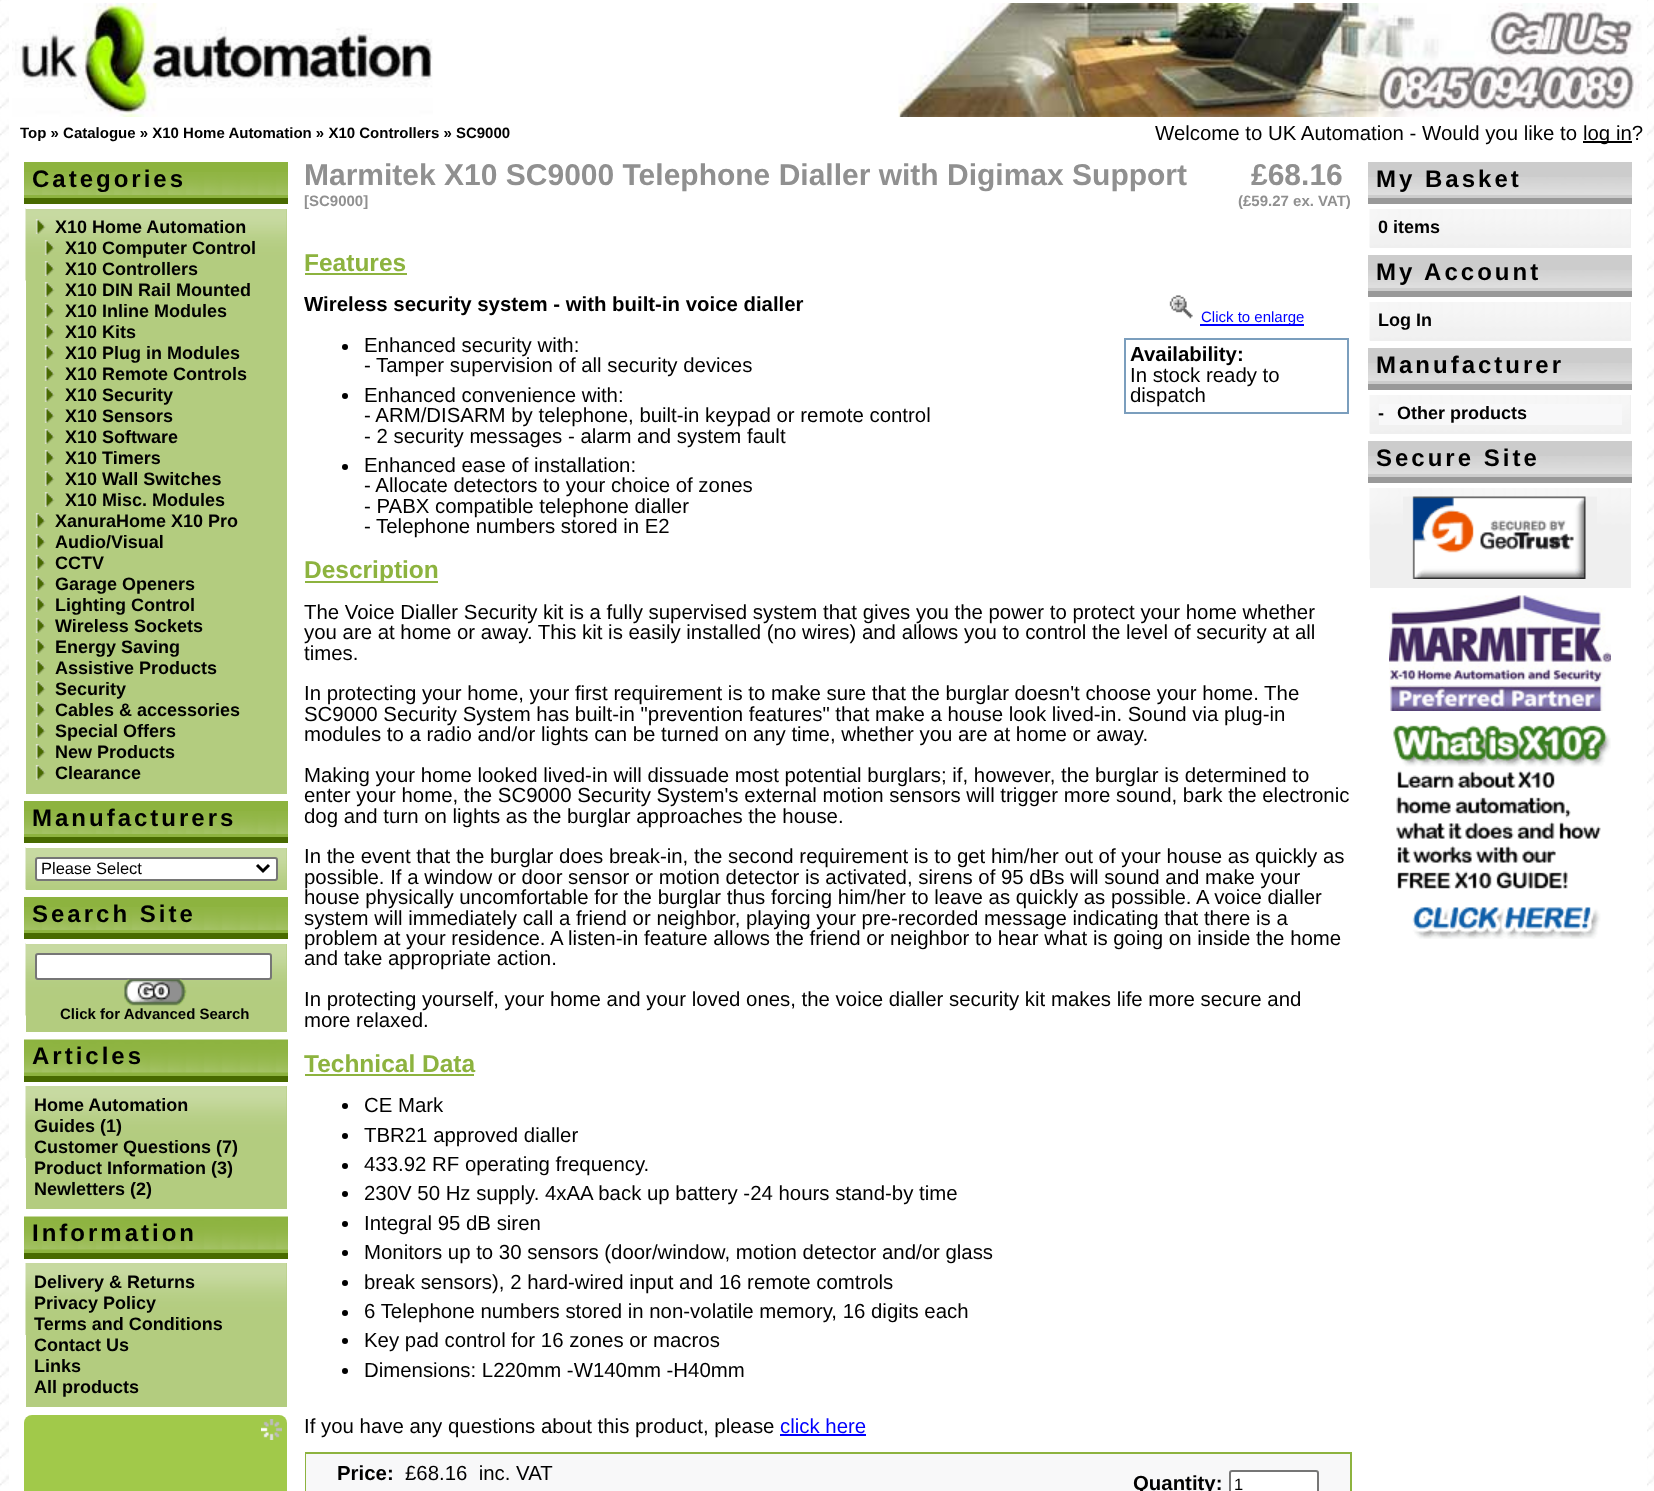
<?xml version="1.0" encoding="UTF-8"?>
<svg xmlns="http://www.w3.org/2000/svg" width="1654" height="1491">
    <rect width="100%" height="100%" fill="#FFFFFF"/>
    <image x="0" y="0" width="1654" height="1491" href="img_01.png"/>
    <rect x="9" y="0" width="1638" height="1491" fill="#FFFFFF"/>
    <image x="12" y="3" width="421" height="114" href="img_02.png"/>
    <image x="898" y="3" width="744" height="114" href="img_03.png"/>
    <text x="20" y="138" font-family="Liberation Sans" font-size="15" font-weight="700" fill="#000000">Top » Catalogue » X10 Home Automation » X10 Controllers » SC9000</text>
    <text x="1155" y="140" font-family="Liberation Sans" font-size="20.4" fill="#000000">Welcome to UK Automation - Would you like to</text>
    <rect x="1583" y="141" width="49" height="2" fill="#000000"/>
    <text x="1583" y="140" font-family="Liberation Sans" font-size="20.4" fill="#000000">log in?</text>
    <rect x="24" y="162" width="264" height="36" fill="#8DB33F"/>
    <image x="24" y="172" width="264" height="23" href="img_04.png"/>
    <rect x="24" y="198" width="264" height="6" fill="#486A00"/>
    <text x="32" y="187" font-family="Liberation Sans" font-size="24" font-weight="700" letter-spacing="3" fill="#000000">Categories</text>
    <rect x="26" y="209" width="261" height="585" fill="#B3CC7F"/>
    <image x="25" y="208" width="262" height="73" href="img_05.png"/>
    <rect x="26" y="208" width="261" height="1" fill="#FFFFFF"/>
    <image x="35" y="219" width="11" height="15" href="img_06.png"/>
    <text x="55" y="233" font-family="Liberation Sans" font-size="18" font-weight="700" fill="#000000">X10 Home Automation</text>
    <image x="44" y="240" width="11" height="15" href="img_07.png"/>
    <text x="65" y="254" font-family="Liberation Sans" font-size="18" font-weight="700" fill="#000000">X10 Computer Control</text>
    <image x="44" y="261" width="11" height="15" href="img_08.png"/>
    <text x="65" y="275" font-family="Liberation Sans" font-size="18" font-weight="700" fill="#000000">X10 Controllers</text>
    <image x="44" y="282" width="11" height="15" href="img_08.png"/>
    <text x="65" y="296" font-family="Liberation Sans" font-size="18" font-weight="700" fill="#000000">X10 DIN Rail Mounted</text>
    <image x="44" y="303" width="11" height="15" href="img_08.png"/>
    <text x="65" y="317" font-family="Liberation Sans" font-size="18" font-weight="700" fill="#000000">X10 Inline Modules</text>
    <image x="44" y="324" width="11" height="15" href="img_08.png"/>
    <text x="65" y="338" font-family="Liberation Sans" font-size="18" font-weight="700" fill="#000000">X10 Kits</text>
    <image x="44" y="345" width="11" height="15" href="img_08.png"/>
    <text x="65" y="359" font-family="Liberation Sans" font-size="18" font-weight="700" fill="#000000">X10 Plug in Modules</text>
    <image x="44" y="366" width="11" height="15" href="img_08.png"/>
    <text x="65" y="380" font-family="Liberation Sans" font-size="18" font-weight="700" fill="#000000">X10 Remote Controls</text>
    <image x="44" y="387" width="11" height="15" href="img_08.png"/>
    <text x="65" y="401" font-family="Liberation Sans" font-size="18" font-weight="700" fill="#000000">X10 Security</text>
    <image x="44" y="408" width="11" height="15" href="img_08.png"/>
    <text x="65" y="422" font-family="Liberation Sans" font-size="18" font-weight="700" fill="#000000">X10 Sensors</text>
    <image x="44" y="429" width="11" height="15" href="img_08.png"/>
    <text x="65" y="443" font-family="Liberation Sans" font-size="18" font-weight="700" fill="#000000">X10 Software</text>
    <image x="44" y="450" width="11" height="15" href="img_08.png"/>
    <text x="65" y="464" font-family="Liberation Sans" font-size="18" font-weight="700" fill="#000000">X10 Timers</text>
    <image x="44" y="471" width="11" height="15" href="img_08.png"/>
    <text x="65" y="485" font-family="Liberation Sans" font-size="18" font-weight="700" fill="#000000">X10 Wall Switches</text>
    <image x="44" y="492" width="11" height="15" href="img_08.png"/>
    <text x="65" y="506" font-family="Liberation Sans" font-size="18" font-weight="700" fill="#000000">X10 Misc. Modules</text>
    <image x="35" y="513" width="11" height="15" href="img_08.png"/>
    <text x="55" y="527" font-family="Liberation Sans" font-size="18" font-weight="700" fill="#000000">XanuraHome X10 Pro</text>
    <image x="35" y="534" width="11" height="15" href="img_08.png"/>
    <text x="55" y="548" font-family="Liberation Sans" font-size="18" font-weight="700" fill="#000000">Audio/Visual</text>
    <image x="35" y="555" width="11" height="15" href="img_08.png"/>
    <text x="55" y="569" font-family="Liberation Sans" font-size="18" font-weight="700" fill="#000000">CCTV</text>
    <image x="35" y="576" width="11" height="15" href="img_08.png"/>
    <text x="55" y="590" font-family="Liberation Sans" font-size="18" font-weight="700" fill="#000000">Garage Openers</text>
    <image x="35" y="597" width="11" height="15" href="img_08.png"/>
    <text x="55" y="611" font-family="Liberation Sans" font-size="18" font-weight="700" fill="#000000">Lighting Control</text>
    <image x="35" y="618" width="11" height="15" href="img_08.png"/>
    <text x="55" y="632" font-family="Liberation Sans" font-size="18" font-weight="700" fill="#000000">Wireless Sockets</text>
    <image x="35" y="639" width="11" height="15" href="img_08.png"/>
    <text x="55" y="653" font-family="Liberation Sans" font-size="18" font-weight="700" fill="#000000">Energy Saving</text>
    <image x="35" y="660" width="11" height="15" href="img_08.png"/>
    <text x="55" y="674" font-family="Liberation Sans" font-size="18" font-weight="700" fill="#000000">Assistive Products</text>
    <image x="35" y="681" width="11" height="15" href="img_08.png"/>
    <text x="55" y="695" font-family="Liberation Sans" font-size="18" font-weight="700" fill="#000000">Security</text>
    <image x="35" y="702" width="11" height="15" href="img_08.png"/>
    <text x="55" y="716" font-family="Liberation Sans" font-size="18" font-weight="700" fill="#000000">Cables &amp; accessories</text>
    <image x="35" y="723" width="11" height="15" href="img_08.png"/>
    <text x="55" y="737" font-family="Liberation Sans" font-size="18" font-weight="700" fill="#000000">Special Offers</text>
    <image x="35" y="744" width="11" height="15" href="img_08.png"/>
    <text x="55" y="758" font-family="Liberation Sans" font-size="18" font-weight="700" fill="#000000">New Products</text>
    <image x="35" y="765" width="11" height="15" href="img_08.png"/>
    <text x="55" y="779" font-family="Liberation Sans" font-size="18" font-weight="700" fill="#000000">Clearance</text>
    <rect x="24" y="801" width="264" height="36" fill="#8DB33F"/>
    <image x="24" y="811" width="264" height="23" href="img_09.png"/>
    <rect x="24" y="837" width="264" height="6" fill="#486A00"/>
    <text x="32" y="826" font-family="Liberation Sans" font-size="24" font-weight="700" letter-spacing="3" fill="#000000">Manufacturers</text>
    <rect x="26" y="848" width="261" height="42" fill="#B3CC7F"/>
    <image x="25" y="847" width="262" height="43" href="img_10.png"/>
    <rect x="26" y="847" width="261" height="1" fill="#FFFFFF"/>
    <rect x="36" y="858" width="241" height="22" rx="2" fill="#FFFFFF" stroke="#767676" stroke-width="2"/>
    <path d="M 257 865 L 263 871 L 269 865" fill="none" stroke="#000000" stroke-width="3"/>
    <text x="41" y="874" font-family="Liberation Sans" font-size="16.5" fill="#000000">Please Select</text>
    <rect x="24" y="897" width="264" height="36" fill="#8DB33F"/>
    <image x="24" y="907" width="264" height="23" href="img_11.png"/>
    <rect x="24" y="933" width="264" height="6" fill="#486A00"/>
    <text x="32" y="922" font-family="Liberation Sans" font-size="24" font-weight="700" letter-spacing="3" fill="#000000">Search Site</text>
    <rect x="26" y="944" width="261" height="88" fill="#B3CC7F"/>
    <image x="25" y="943" width="262" height="73" href="img_12.png"/>
    <rect x="26" y="943" width="261" height="1" fill="#FFFFFF"/>
    <rect x="36" y="954" width="235" height="25" rx="2" fill="#FFFFFF" stroke="#767676" stroke-width="2"/>
    <image x="124" y="979" width="63" height="27" href="img_13.png"/>
    <text x="60" y="1019" font-family="Liberation Sans" font-size="15" font-weight="700" fill="#000000">Click for Advanced Search</text>
    <rect x="24" y="1072" width="264" height="4" fill="#8DB33F"/>
    <image x="24" y="1039" width="264" height="34" href="img_14.png"/>
    <rect x="24" y="1076" width="264" height="6" fill="#486A00"/>
    <text x="32" y="1064" font-family="Liberation Sans" font-size="24" font-weight="700" letter-spacing="3" fill="#000000">Articles</text>
    <rect x="26" y="1086" width="261" height="123" fill="#B3CC7F"/>
    <image x="25" y="1086" width="262" height="72" href="img_15.png"/>
    <text font-family="Liberation Sans" font-size="18" font-weight="700" fill="#000000">
        <tspan x="34" y="1111">Home Automation</tspan>
        <tspan x="34" y="1132">Guides (1)</tspan>
        <tspan x="34" y="1153">Customer Questions (7)</tspan>
        <tspan x="34" y="1174">Product Information (3)</tspan>
        <tspan x="34" y="1195">Newletters (2)</tspan>
    </text>
    <rect x="24" y="1249" width="264" height="4" fill="#8DB33F"/>
    <image x="24" y="1216" width="264" height="34" href="img_16.png"/>
    <rect x="24" y="1253" width="264" height="6" fill="#486A00"/>
    <text x="32" y="1241" font-family="Liberation Sans" font-size="24" font-weight="700" letter-spacing="3" fill="#000000">Information</text>
    <rect x="26" y="1263" width="261" height="144" fill="#B3CC7F"/>
    <image x="25" y="1263" width="262" height="72" href="img_17.png"/>
    <text font-family="Liberation Sans" font-size="18" font-weight="700" fill="#000000">
        <tspan x="34" y="1288">Delivery &amp; Returns</tspan>
        <tspan x="34" y="1309">Privacy Policy</tspan>
        <tspan x="34" y="1330">Terms and Conditions</tspan>
        <tspan x="34" y="1351">Contact Us</tspan>
        <tspan x="34" y="1372">Links</tspan>
        <tspan x="34" y="1393">All products</tspan>
    </text>
    <rect x="24" y="1415" width="263" height="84" rx="8" fill="#A1C94A"/>
    <image x="261" y="1419" width="21" height="21" href="img_18.png"/>
    <text x="304" y="185" font-family="Liberation Sans" font-size="30" font-weight="700" fill="#909090">Marmitek X10 SC9000 Telephone Dialler with Digimax Support</text>
    <text x="304" y="206" font-family="Liberation Sans" font-size="15" font-weight="700" fill="#909090">[SC9000]</text>
    <text x="1251" y="185" font-family="Liberation Sans" font-size="30" font-weight="700" fill="#909090">£68.16</text>
    <text x="1238" y="206" font-family="Liberation Sans" font-size="15" font-weight="700" fill="#909090">(£59.27 ex. VAT)</text>
    <text x="304" y="271" font-family="Liberation Sans" font-size="24.5" font-weight="700" fill="#8DB33F">Features</text>
    <rect x="305" y="273" width="102" height="2" fill="#8DB33F"/>
    <text x="304" y="311" font-family="Liberation Sans" font-size="20.4" font-weight="700" fill="#000000">Wireless security system - with built-in voice dialler</text>
    <circle cx="345" cy="347" r="3" fill="#000000"/>
    <text font-family="Liberation Sans" font-size="20.4" fill="#000000">
        <tspan x="364" y="352">Enhanced security with:</tspan>
        <tspan x="364" y="372">- Tamper supervision of all security devices</tspan>
    </text>
    <circle cx="345" cy="396" r="3" fill="#000000"/>
    <text font-family="Liberation Sans" font-size="20.4" fill="#000000">
        <tspan x="364" y="402">Enhanced convenience with:</tspan>
        <tspan x="364" y="422">- ARM/DISARM by telephone, built-in keypad or remote control</tspan>
        <tspan x="364" y="443">- 2 security messages - alarm and system fault</tspan>
    </text>
    <circle cx="345" cy="467" r="3" fill="#000000"/>
    <text font-family="Liberation Sans" font-size="20.4" fill="#000000">
        <tspan x="364" y="472">Enhanced ease of installation:</tspan>
        <tspan x="364" y="492">- Allocate detectors to your choice of zones</tspan>
        <tspan x="364" y="513">- PABX compatible telephone dialler</tspan>
        <tspan x="364" y="533">- Telephone numbers stored in E2</tspan>
    </text>
    <image x="1169" y="295" width="24" height="24" href="img_19.png"/>
    <rect x="1200" y="324" width="104" height="2" fill="#0000FF"/>
    <text x="1201" y="322" font-family="Liberation Sans" font-size="15" fill="#0000FF">Click to enlarge</text>
    <rect x="1125" y="339" width="223" height="74" fill="none" stroke="#7B9EBD" stroke-width="2"/>
    <text x="1130" y="361" font-family="Liberation Sans" font-size="20.4" font-weight="700" fill="#000000">Availability:</text>
    <text font-family="Liberation Sans" font-size="20.4" fill="#000000">
        <tspan x="1130" y="382">In stock ready to</tspan>
        <tspan x="1130" y="402">dispatch</tspan>
    </text>
    <rect x="305" y="581" width="133" height="2" fill="#8DB33F"/>
    <text x="304" y="578" font-family="Liberation Sans" font-size="24.5" font-weight="700" fill="#8DB33F">Description</text>
    <text font-family="Liberation Sans" font-size="20.4" fill="#000000">
        <tspan x="304" y="619">The Voice Dialler Security kit is a fully supervised system that gives you the power to protect your home whether</tspan>
        <tspan x="304" y="639">you are at home or away. This kit is easily installed (no wires) and allows you to control the level of security at all</tspan>
        <tspan x="304" y="660">times.</tspan>
        <tspan x="304" y="700">In protecting your home, your first requirement is to make sure that the burglar doesn't choose your home. The</tspan>
        <tspan x="304" y="721">SC9000 Security System has built-in "prevention features" that make a house look lived-in. Sound via plug-in</tspan>
        <tspan x="304" y="741">modules to a radio and/or lights can be turned on any time, whether you are at home or away.</tspan>
    </text>
    <text font-family="Liberation Sans" font-size="20.4" fill="#000000">
        <tspan x="304" y="782">Making your home looked lived-in will dissuade most potential burglars; if, however, the burglar is determined to</tspan>
        <tspan x="304" y="802">enter your home, the SC9000 Security System's external motion sensors will trigger more sound, bark the electronic</tspan>
        <tspan x="304" y="823">dog and turn on lights as the burglar approaches the house.</tspan>
        <tspan x="304" y="863">In the event that the burglar does break-in, the second requirement is to get him/her out of your house as quickly as</tspan>
        <tspan x="304" y="884">possible. If a window or door sensor or motion detector is activated, sirens of 95 dBs will sound and make your</tspan>
        <tspan x="304" y="904">house physically uncomfortable for the burglar thus forcing him/her to leave as quickly as possible. A voice dialler</tspan>
        <tspan x="304" y="925">system will immediately call a friend or neighbor, playing your pre-recorded message indicating that there is a</tspan>
        <tspan x="304" y="945">problem at your residence. A listen-in feature allows the friend or neighbor to hear what is going on inside the home</tspan>
        <tspan x="304" y="965">and take appropriate action.</tspan>
    </text>
    <text font-family="Liberation Sans" font-size="20.4" fill="#000000">
        <tspan x="304" y="1006">In protecting yourself, your home and your loved ones, the voice dialler security kit makes life more secure and</tspan>
        <tspan x="304" y="1027">more relaxed.</tspan>
    </text>
    <text x="304" y="1072" font-family="Liberation Sans" font-size="24.5" font-weight="700" fill="#8DB33F">Technical Data</text>
    <rect x="305" y="1074" width="169" height="2" fill="#8DB33F"/>
    <circle cx="345" cy="1106" r="3" fill="#000000"/>
    <text x="364" y="1112" font-family="Liberation Sans" font-size="20.4" fill="#000000">CE Mark</text>
    <circle cx="345" cy="1136" r="3" fill="#000000"/>
    <text x="364" y="1142" font-family="Liberation Sans" font-size="20.4" fill="#000000">TBR21 approved dialler</text>
    <circle cx="345" cy="1166" r="3" fill="#000000"/>
    <text x="364" y="1171" font-family="Liberation Sans" font-size="20.4" fill="#000000">433.92 RF operating frequency.</text>
    <circle cx="345" cy="1194" r="3" fill="#000000"/>
    <text x="364" y="1200" font-family="Liberation Sans" font-size="20.4" fill="#000000">230V 50 Hz supply. 4xAA back up battery -24 hours stand-by time</text>
    <circle cx="345" cy="1224" r="3" fill="#000000"/>
    <text x="364" y="1230" font-family="Liberation Sans" font-size="20.4" fill="#000000">Integral 95 dB siren</text>
    <circle cx="345" cy="1253" r="3" fill="#000000"/>
    <text x="364" y="1259" font-family="Liberation Sans" font-size="20.4" fill="#000000">Monitors up to 30 sensors (door/window, motion detector and/or glass</text>
    <circle cx="345" cy="1283" r="3" fill="#000000"/>
    <text x="364" y="1289" font-family="Liberation Sans" font-size="20.4" fill="#000000">break sensors), 2 hard-wired input and 16 remote comtrols</text>
    <circle cx="345" cy="1313" r="3" fill="#000000"/>
    <text x="364" y="1318" font-family="Liberation Sans" font-size="20.4" fill="#000000">6 Telephone numbers stored in non-volatile memory, 16 digits each</text>
    <circle cx="345" cy="1341" r="3" fill="#000000"/>
    <text x="364" y="1347" font-family="Liberation Sans" font-size="20.4" fill="#000000">Key pad control for 16 zones or macros</text>
    <circle cx="345" cy="1371" r="3" fill="#000000"/>
    <text x="364" y="1377" font-family="Liberation Sans" font-size="20.4" fill="#000000">Dimensions: L220mm -W140mm -H40mm</text>
    <text x="304" y="1433" font-family="Liberation Sans" font-size="20.4" fill="#000000">If you have any questions about this product, please</text>
    <text x="780" y="1433" font-family="Liberation Sans" font-size="20.4" fill="#0000FF">click here</text>
    <rect x="780" y="1434" width="86" height="2" fill="#0000FF"/>
    <rect x="305" y="1452" width="1047" height="39" fill="#8DB33F"/>
    <rect x="306" y="1454" width="1044" height="37" fill="#F8F8F9"/>
    <text x="337" y="1480" font-family="Liberation Sans" font-size="20.4" font-weight="700" fill="#000000">Price:</text>
    <text x="405" y="1480" font-family="Liberation Sans" font-size="20.4" fill="#000000" xml:space="preserve">£68.16  inc. VAT</text>
    <text x="1133" y="1490" font-family="Liberation Sans" font-size="20.4" font-weight="700" fill="#000000">Quantity:</text>
    <rect x="1230" y="1471" width="88" height="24" rx="2" fill="#FFFFFF" stroke="#767676" stroke-width="2"/>
    <text x="1234" y="1490" font-family="Liberation Sans" font-size="16.5" fill="#000000">1</text>
    <rect x="1368" y="162" width="264" height="36" fill="#CCCCCC"/>
    <image x="1368" y="177" width="264" height="18" href="img_20.png"/>
    <rect x="1368" y="198" width="264" height="6" fill="#999999"/>
    <text x="1376" y="187" font-family="Liberation Sans" font-size="24" font-weight="700" letter-spacing="3" fill="#000000">My Basket</text>
    <rect x="1370" y="209" width="261" height="39" fill="#EFEFEF"/>
    <image x="1369" y="209" width="261" height="39" href="img_21.png"/>
    <text x="1378" y="233" font-family="Liberation Sans" font-size="18" font-weight="700" fill="#000000">0 items</text>
    <rect x="1368" y="255" width="264" height="36" fill="#CCCCCC"/>
    <image x="1368" y="270" width="264" height="18" href="img_20.png"/>
    <rect x="1368" y="291" width="264" height="6" fill="#999999"/>
    <text x="1376" y="280" font-family="Liberation Sans" font-size="24" font-weight="700" letter-spacing="3" fill="#000000">My Account</text>
    <rect x="1370" y="302" width="261" height="39" fill="#EFEFEF"/>
    <image x="1369" y="302" width="261" height="39" href="img_22.png"/>
    <text x="1378" y="326" font-family="Liberation Sans" font-size="18" font-weight="700" fill="#000000">Log In</text>
    <rect x="1368" y="348" width="264" height="36" fill="#CCCCCC"/>
    <image x="1368" y="363" width="264" height="18" href="img_20.png"/>
    <rect x="1368" y="384" width="264" height="6" fill="#999999"/>
    <text x="1376" y="373" font-family="Liberation Sans" font-size="24" font-weight="700" letter-spacing="3" fill="#000000">Manufacturer</text>
    <rect x="1370" y="395" width="261" height="39" fill="#EFEFEF"/>
    <image x="1369" y="395" width="261" height="39" href="img_22.png"/>
    <rect x="1379" y="404" width="243" height="21" fill="#F8F8F9"/>
    <text x="1378" y="419" font-family="Liberation Sans" font-size="18" font-weight="700" fill="#000000">-</text>
    <text x="1397" y="419" font-family="Liberation Sans" font-size="18" font-weight="700" fill="#000000">Other products</text>
    <rect x="1368" y="441" width="264" height="36" fill="#CCCCCC"/>
    <image x="1368" y="456" width="264" height="18" href="img_20.png"/>
    <rect x="1368" y="477" width="264" height="6" fill="#999999"/>
    <text x="1376" y="466" font-family="Liberation Sans" font-size="24" font-weight="700" letter-spacing="3" fill="#000000">Secure Site</text>
    <rect x="1370" y="488" width="261" height="100" fill="#EFEFEF"/>
    <image x="1369" y="488" width="261" height="72" href="img_23.png"/>
    <image x="1403" y="496" width="194" height="83" href="img_24.png"/>
    <image x="1389" y="595" width="222" height="116" href="img_25.png"/>
    <image x="1393" y="725" width="218" height="214" href="img_26.png"/>
</svg>
